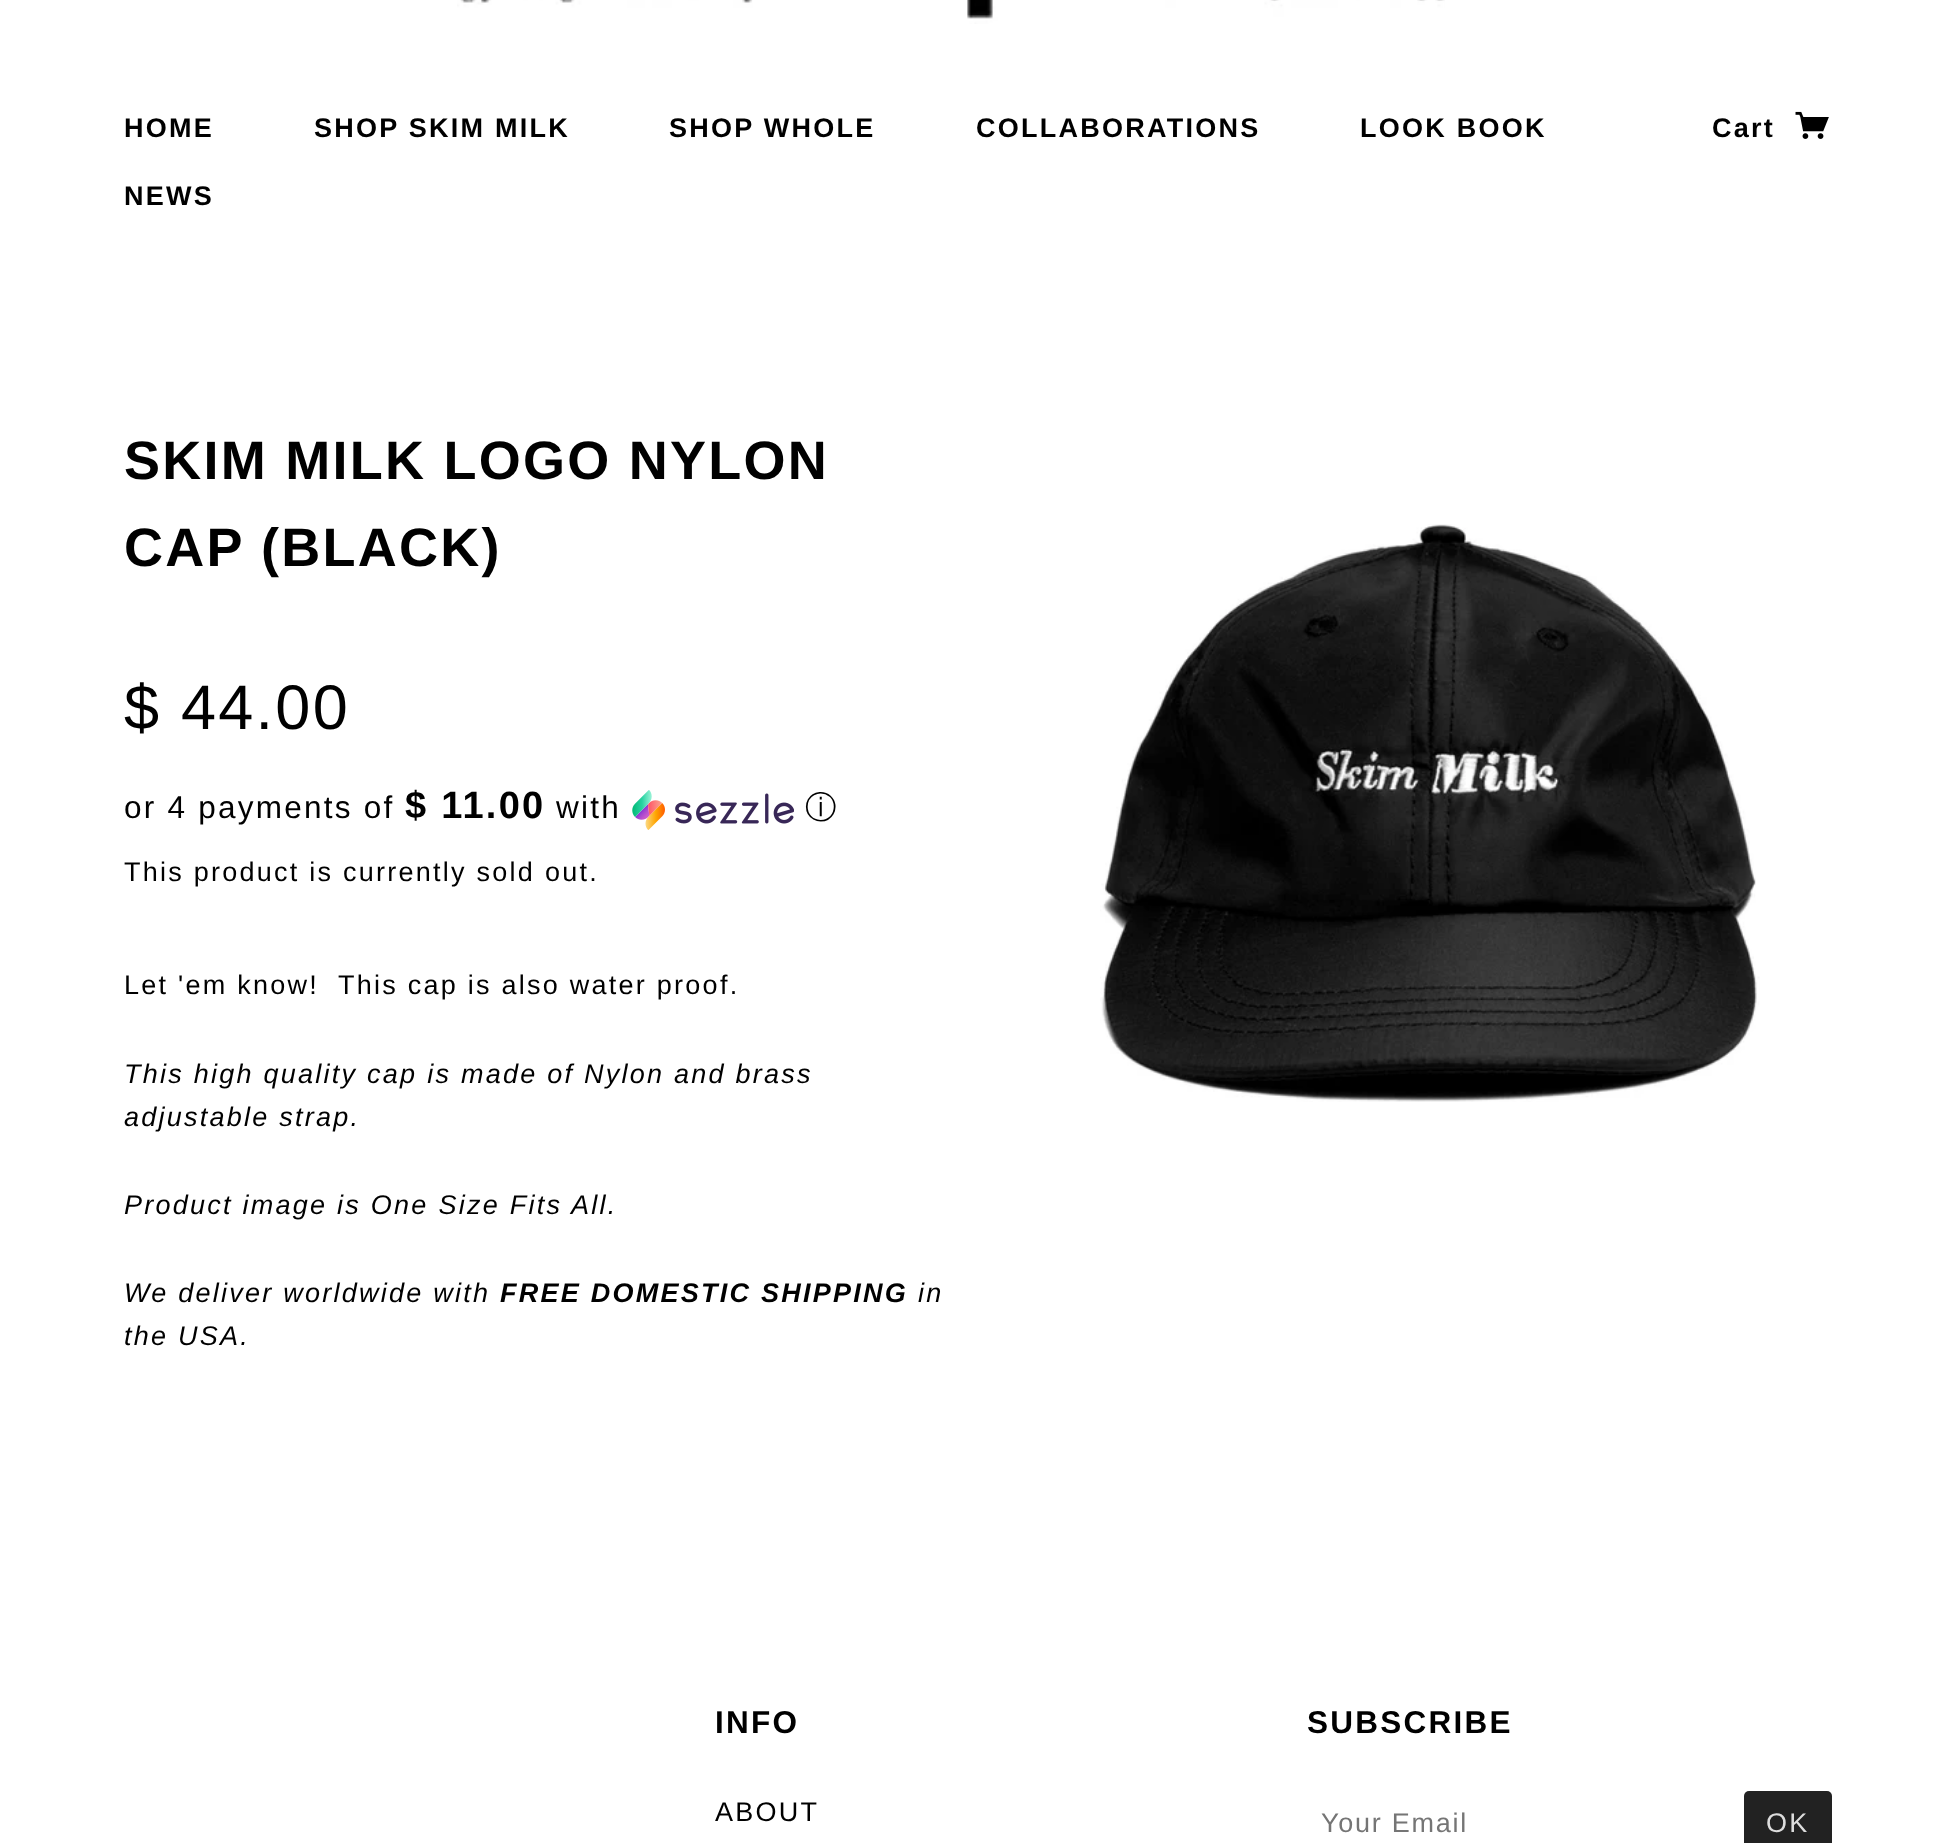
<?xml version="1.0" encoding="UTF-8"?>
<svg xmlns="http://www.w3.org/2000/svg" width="1955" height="1843">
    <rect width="100%" height="100%" fill="#FFFFFF"/>
    <image x="457" y="0" width="988" height="24" href="img_01.png"/>
    <text x="124" y="137" font-family="Liberation Sans" font-size="27" font-weight="700" letter-spacing="2.25" fill="#000000">HOME</text>
    <text x="314" y="137" font-family="Liberation Sans" font-size="27" font-weight="700" letter-spacing="2.25" fill="#000000">SHOP SKIM MILK</text>
    <text x="669" y="137" font-family="Liberation Sans" font-size="27" font-weight="700" letter-spacing="2.25" fill="#000000">SHOP WHOLE</text>
    <text x="976" y="137" font-family="Liberation Sans" font-size="27" font-weight="700" letter-spacing="2.25" fill="#000000">COLLABORATIONS</text>
    <text x="1360" y="137" font-family="Liberation Sans" font-size="27" font-weight="700" letter-spacing="2.25" fill="#000000">LOOK BOOK</text>
    <text x="124" y="205" font-family="Liberation Sans" font-size="27" font-weight="700" letter-spacing="2.25" fill="#000000">NEWS</text>
    <text x="1712" y="137" font-family="Liberation Sans" font-size="27" font-weight="700" letter-spacing="2.25" fill="#000000">Cart</text>
    <image x="1795" y="111" width="34" height="28" href="img_02.png"/>
    <text font-family="Liberation Sans" font-size="54" font-weight="700" letter-spacing="2.25" fill="#000000">
        <tspan x="124" y="479">SKIM MILK LOGO NYLON</tspan>
        <tspan x="124" y="566">CAP (BLACK)</tspan>
    </text>
    <text x="124" y="729" font-family="Liberation Sans" font-size="63" letter-spacing="2.25" fill="#000000">$ 44.00</text>
    <text x="124" y="818" font-family="Liberation Sans" font-size="31.5" letter-spacing="2.25" fill="#000000">or 4 payments of</text>
    <text x="405" y="818" font-family="Liberation Sans" font-size="38" font-weight="700" letter-spacing="2.25" fill="#000000">$ 11.00</text>
    <text x="556" y="818" font-family="Liberation Sans" font-size="31.5" letter-spacing="2.25" fill="#000000">with</text>
    <image x="632" y="790" width="162" height="40" href="img_03.png"/>
    <text x="805" y="818" font-family="WenQuanYi Zen Hei" font-size="31.5" font-weight="500" letter-spacing="2.25" fill="#000000">ⓘ</text>
    <text x="124" y="881" font-family="Liberation Sans" font-size="27" letter-spacing="2.25" fill="#000000">This product is currently sold out.</text>
    <text x="124" y="994" font-family="Liberation Sans" font-size="27" letter-spacing="2.25" fill="#000000" xml:space="preserve">Let 'em know!  This cap is also water proof.</text>
    <text font-family="Liberation Sans" font-size="27" font-style="italic" letter-spacing="2.25" fill="#000000">
        <tspan x="124" y="1083">This high quality cap is made of Nylon and brass</tspan>
        <tspan x="124" y="1126">adjustable strap.</tspan>
    </text>
    <text x="124" y="1214" font-family="Liberation Sans" font-size="27" font-style="italic" letter-spacing="2.25" fill="#000000">Product image is One Size Fits All.</text>
    <text x="124" y="1302" font-family="Liberation Sans" font-size="27" font-style="italic" letter-spacing="2.25" fill="#000000">We deliver worldwide with</text>
    <text x="500" y="1302" font-family="Liberation Sans" font-size="27" font-weight="700" font-style="italic" letter-spacing="2.25" fill="#000000">FREE DOMESTIC SHIPPING</text>
    <text x="918" y="1302" font-family="Liberation Sans" font-size="27" font-style="italic" letter-spacing="2.25" fill="#000000">in</text>
    <text x="124" y="1345" font-family="Liberation Sans" font-size="27" font-style="italic" letter-spacing="2.25" fill="#000000">the USA.</text>
    <image x="1100" y="524" width="660" height="578" href="img_04.png"/>
    <text x="715" y="1733" font-family="Liberation Sans" font-size="31.5" font-weight="700" letter-spacing="2.25" fill="#000000">INFO</text>
    <text x="715" y="1821" font-family="Liberation Sans" font-size="27" letter-spacing="2.25" fill="#000000">ABOUT</text>
    <text x="1307" y="1733" font-family="Liberation Sans" font-size="31.5" font-weight="700" letter-spacing="2.25" fill="#000000">SUBSCRIBE</text>
    <text x="1321" y="1832" font-family="Liberation Sans" font-size="27" letter-spacing="1.75" fill="#757575">Your Email</text>
    <rect x="1744" y="1791" width="88" height="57" rx="5" fill="#222222"/>
    <text x="1766" y="1832" font-family="Liberation Sans" font-size="27" letter-spacing="2.25" fill="#DDDDDD">OK</text>
</svg>
